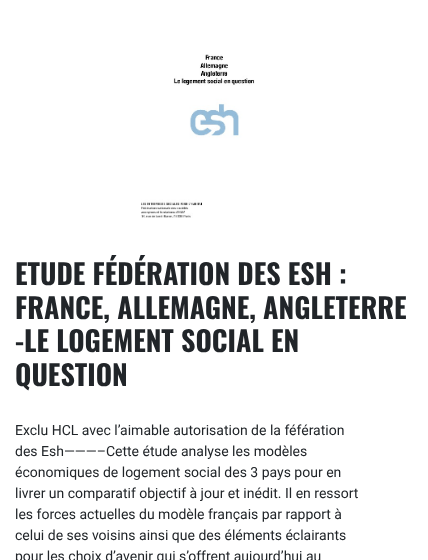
<?xml version="1.0" encoding="UTF-8"?>
<svg xmlns="http://www.w3.org/2000/svg" width="428" height="560">
    <rect width="100%" height="100%" fill="#FFFFFF"/>
    <image x="141" y="54" width="114" height="164" href="img_01.png"/>
    <text font-family="Oswald" font-size="28" font-weight="700" fill="#212529">
        <tspan x="15" y="285">ETUDE FÉDÉRATION DES ESH :</tspan>
        <tspan x="15" y="319">FRANCE, ALLEMAGNE, ANGLETERRE</tspan>
        <tspan x="15" y="352">-LE LOGEMENT SOCIAL EN</tspan>
        <tspan x="15" y="386">QUESTION</tspan>
    </text>
    <text font-family="Roboto" font-size="14" fill="#212529">
        <tspan x="15" y="435">Exclu HCL avec l’aimable autorisation de la féfération</tspan>
        <tspan x="15" y="456">des Esh———–Cette étude analyse les modèles</tspan>
        <tspan x="15" y="477">économiques de logement social des 3 pays pour en</tspan>
        <tspan x="15" y="498">livrer un comparatif objectif à jour et inédit. Il en ressort</tspan>
        <tspan x="15" y="519">les forces actuelles du modèle français par rapport à</tspan>
        <tspan x="15" y="540">celui de ses voisins ainsi que des éléments éclairants</tspan>
        <tspan x="15" y="561">pour les choix d’avenir qui s’offrent aujourd’hui au</tspan>
    </text>
</svg>
